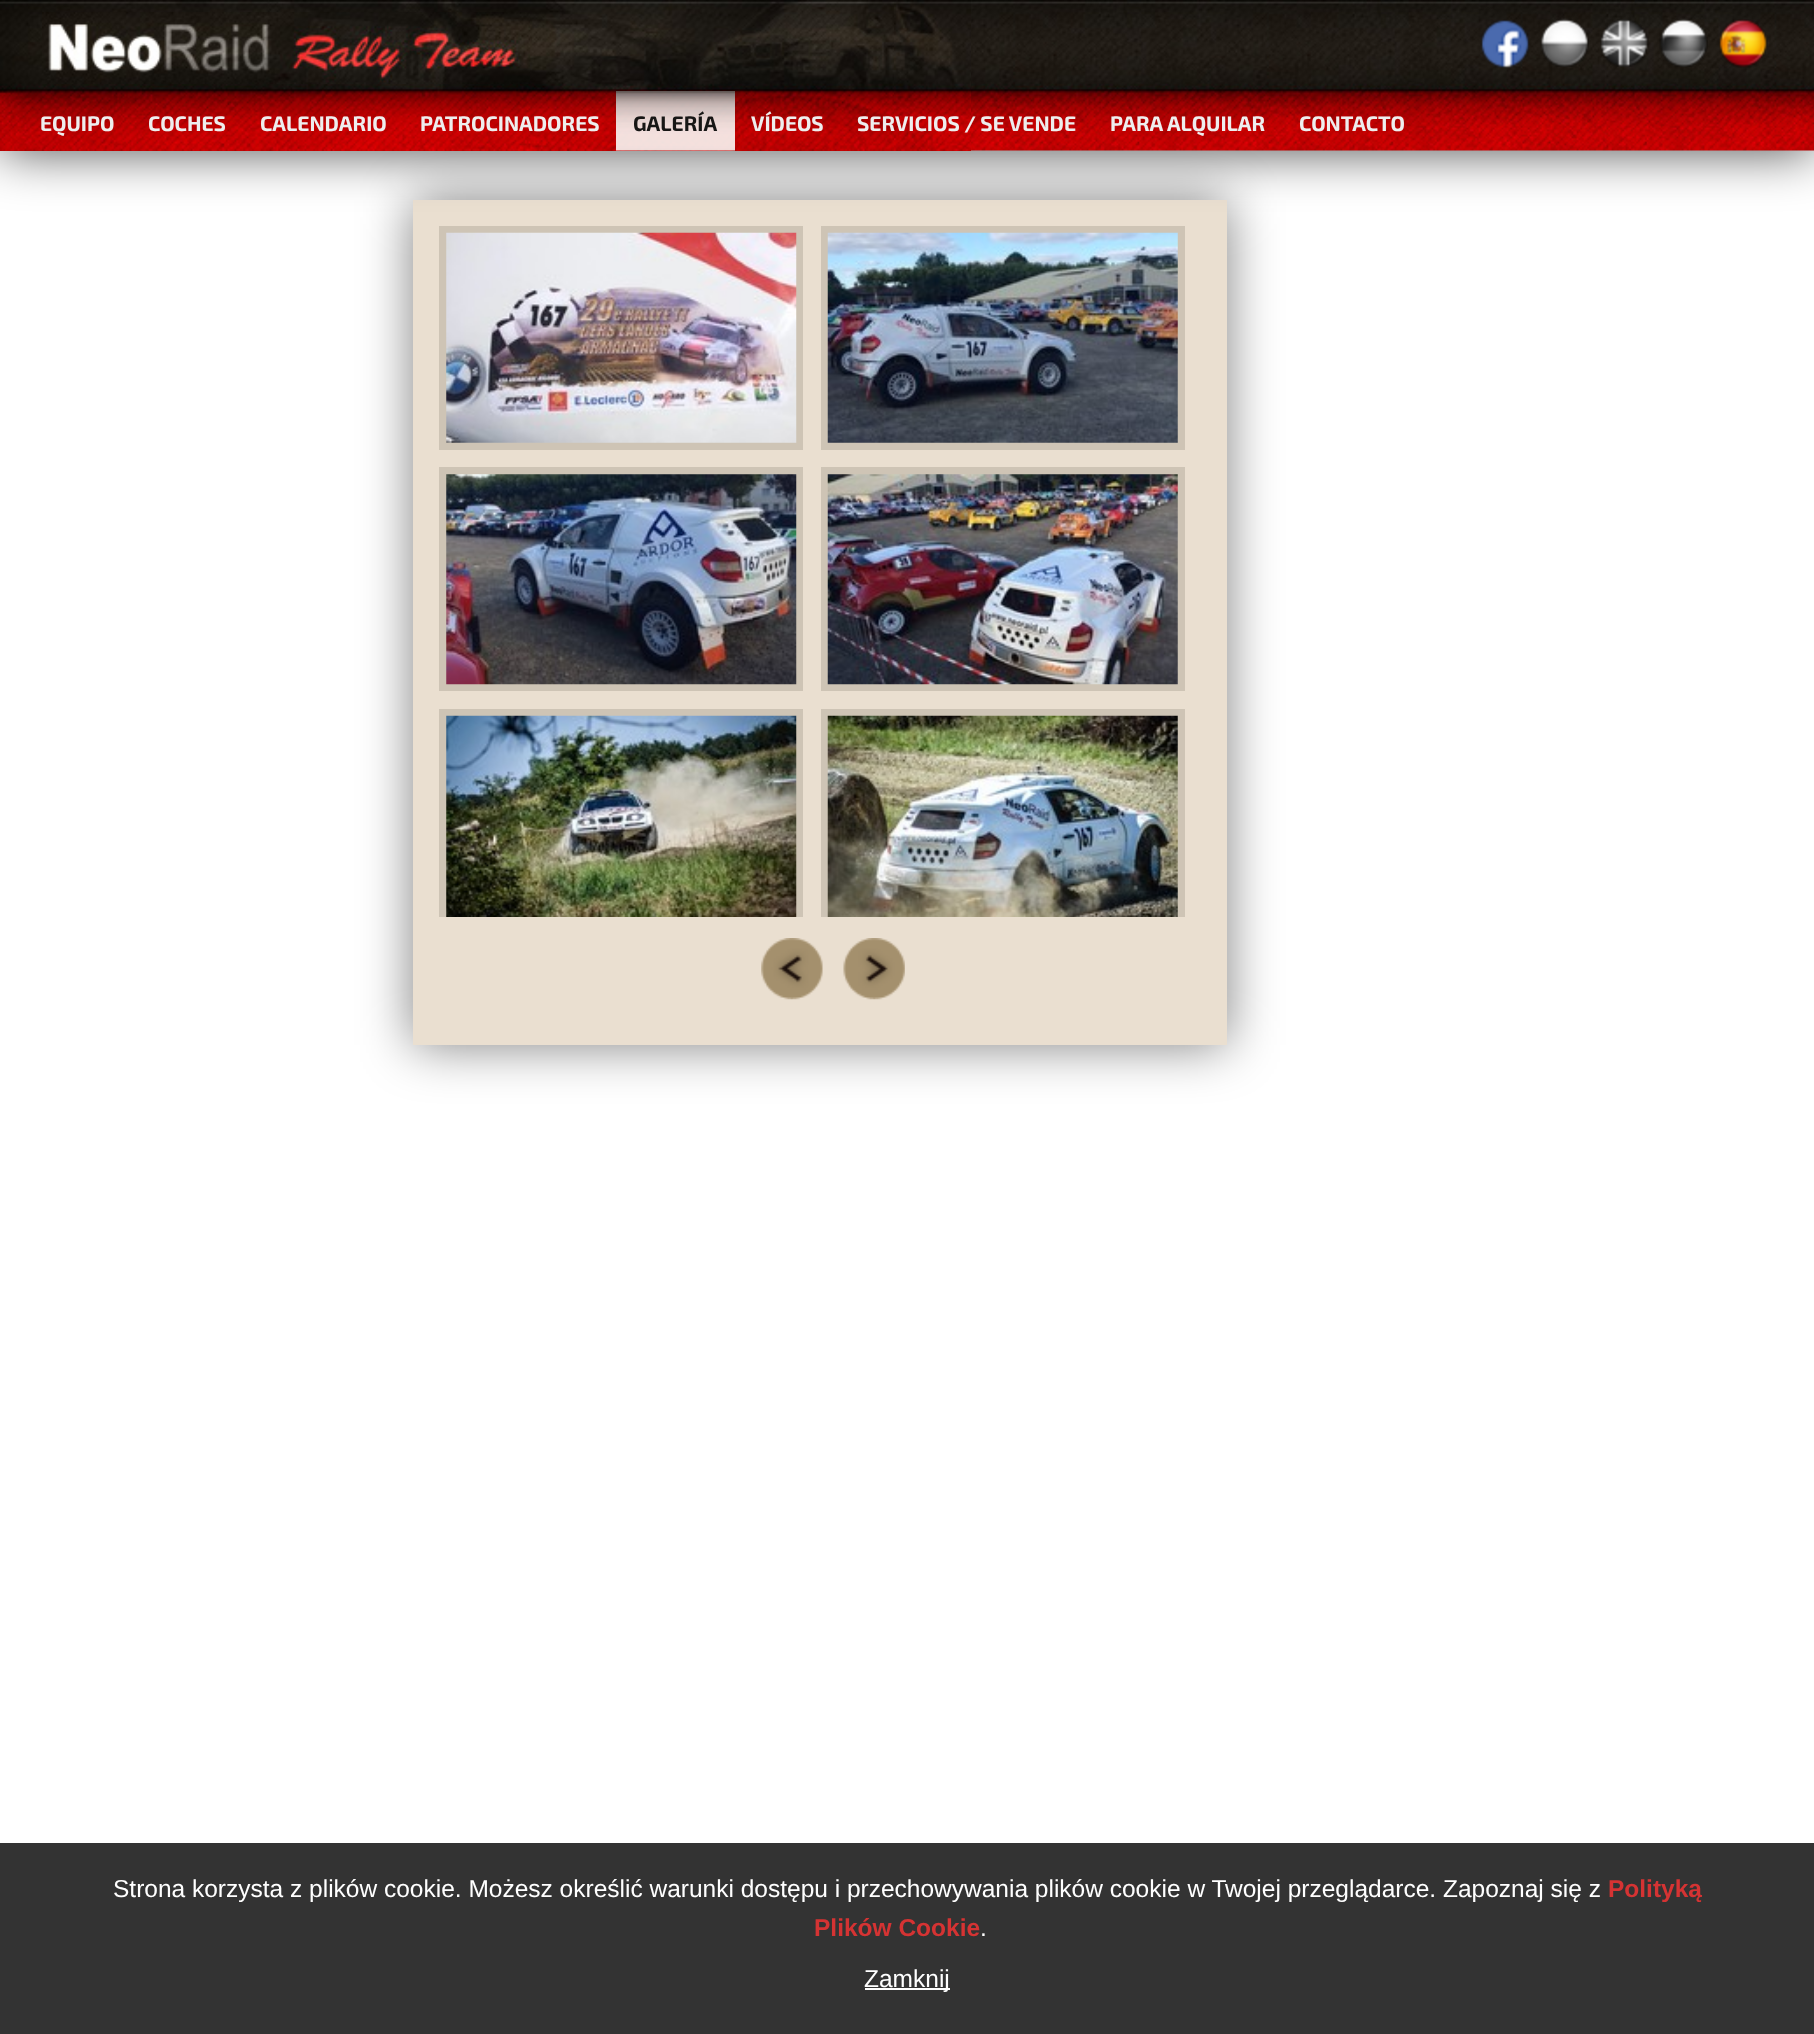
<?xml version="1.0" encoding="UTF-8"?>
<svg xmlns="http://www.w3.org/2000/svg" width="1814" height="2034">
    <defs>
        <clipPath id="clip1"><path d="M 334 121 H 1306 V 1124 H 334 Z M 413 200 H 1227 V 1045 H 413 Z" clip-rule="evenodd"/></clipPath>
        <filter id="blur1" x="-50%" y="-200%" width="200%" height="500%"><feGaussianBlur stdDeviation="26"/></filter>
    </defs>
    <rect width="100%" height="100%" fill="#FFFFFF"/>
    <g clip-path="url(#clip1)">
        <rect x="413" y="200" width="814" height="845" fill="#000000" fill-opacity="0.5" filter="url(#blur1)"/>
    </g>
    <rect x="413" y="200" width="814" height="845" fill="#E5D7C4" fill-opacity="0.8"/>
    <rect x="439" y="226" width="364" height="224" fill="#CEC4B5"/>
    <rect x="821" y="226" width="364" height="224" fill="#CEC4B5"/>
    <rect x="0" y="0" width="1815" height="151" fill="#000000" fill-opacity="0.7" filter="url(#blur1)"/>
    <image x="971" y="0" width="843" height="151" href="img_01.png"/>
    <image x="0" y="0" width="971" height="151" href="img_02.png"/>
    <image x="42" y="12" width="488" height="72" href="img_03.png"/>
    <image x="1481" y="20" width="48" height="48" href="img_04.png"/>
    <image x="1540" y="18" width="49" height="49" href="img_05.png"/>
    <image x="1600" y="19" width="49" height="48" href="img_06.png"/>
    <image x="1659" y="18" width="49" height="49" href="img_07.png"/>
    <image x="1719" y="19" width="49" height="49" href="img_08.png"/>
    <text x="40" y="131" font-family="'Exo 2'" font-size="21" font-weight="700" fill="#EEEEEE">EQUIPO</text>
    <text x="148" y="131" font-family="'Exo 2'" font-size="21" font-weight="700" fill="#EEEEEE">COCHES</text>
    <text x="260" y="131" font-family="'Exo 2'" font-size="21" font-weight="700" fill="#EEEEEE">CALENDARIO</text>
    <text x="420" y="131" font-family="'Exo 2'" font-size="21" font-weight="700" fill="#EEEEEE">PATROCINADORES</text>
    <image x="616" y="91" width="119" height="60" href="img_09.png"/>
    <text x="633" y="131" font-family="'Exo 2'" font-size="21" font-weight="700" fill="#171615">GALERÍA</text>
    <text x="751" y="131" font-family="'Exo 2'" font-size="21" font-weight="700" fill="#EEEEEE">VÍDEOS</text>
    <text x="857" y="131" font-family="'Exo 2'" font-size="21" font-weight="700" fill="#EEEEEE">SERVICIOS / SE VENDE</text>
    <text x="1110" y="131" font-family="'Exo 2'" font-size="21" font-weight="700" fill="#EEEEEE">PARA ALQUILAR</text>
    <text x="1299" y="131" font-family="'Exo 2'" font-size="21" font-weight="700" fill="#EEEEEE">CONTACTO</text>
    <image x="446" y="232" width="351" height="211" href="img_10.png"/>
    <image x="827" y="232" width="351" height="211" href="img_11.png"/>
    <rect x="439" y="467" width="364" height="224" fill="#CEC4B5"/>
    <image x="446" y="474" width="351" height="211" href="img_12.png"/>
    <rect x="821" y="467" width="364" height="224" fill="#CEC4B5"/>
    <image x="827" y="474" width="351" height="211" href="img_13.png"/>
    <rect x="439" y="709" width="364" height="208" fill="#CEC4B5"/>
    <image x="446" y="715" width="351" height="202" href="img_14.png"/>
    <rect x="821" y="709" width="364" height="208" fill="#CEC4B5"/>
    <image x="827" y="715" width="351" height="202" href="img_15.png"/>
    <image x="761" y="938" width="62" height="62" href="img_16.png"/>
    <image x="843" y="938" width="62" height="62" href="img_17.png"/>
    <rect x="0" y="1843" width="1814" height="191" fill="#333333"/>
    <text x="113" y="1897" font-family="Liberation Sans" font-size="24.5" fill="#FFFFFF">Strona korzysta z plików cookie. Możesz określić warunki dostępu i przechowywania plików cookie w Twojej przeglądarce. Zapoznaj się z</text>
    <text x="1608" y="1897" font-family="Liberation Sans" font-size="24.5" font-weight="700" fill="#D53333">Polityką</text>
    <text x="814" y="1936" font-family="Liberation Sans" font-size="24.5" font-weight="700" fill="#D53333">Plików Cookie</text>
    <text x="980" y="1936" font-family="Liberation Sans" font-size="24.5" fill="#FFFFFF">.</text>
    <rect x="865" y="1988" width="85" height="2" fill="#FFFFFF"/>
    <text x="864" y="1987" font-family="Liberation Sans" font-size="24.5" fill="#FFFFFF">Zamknij</text>
</svg>
